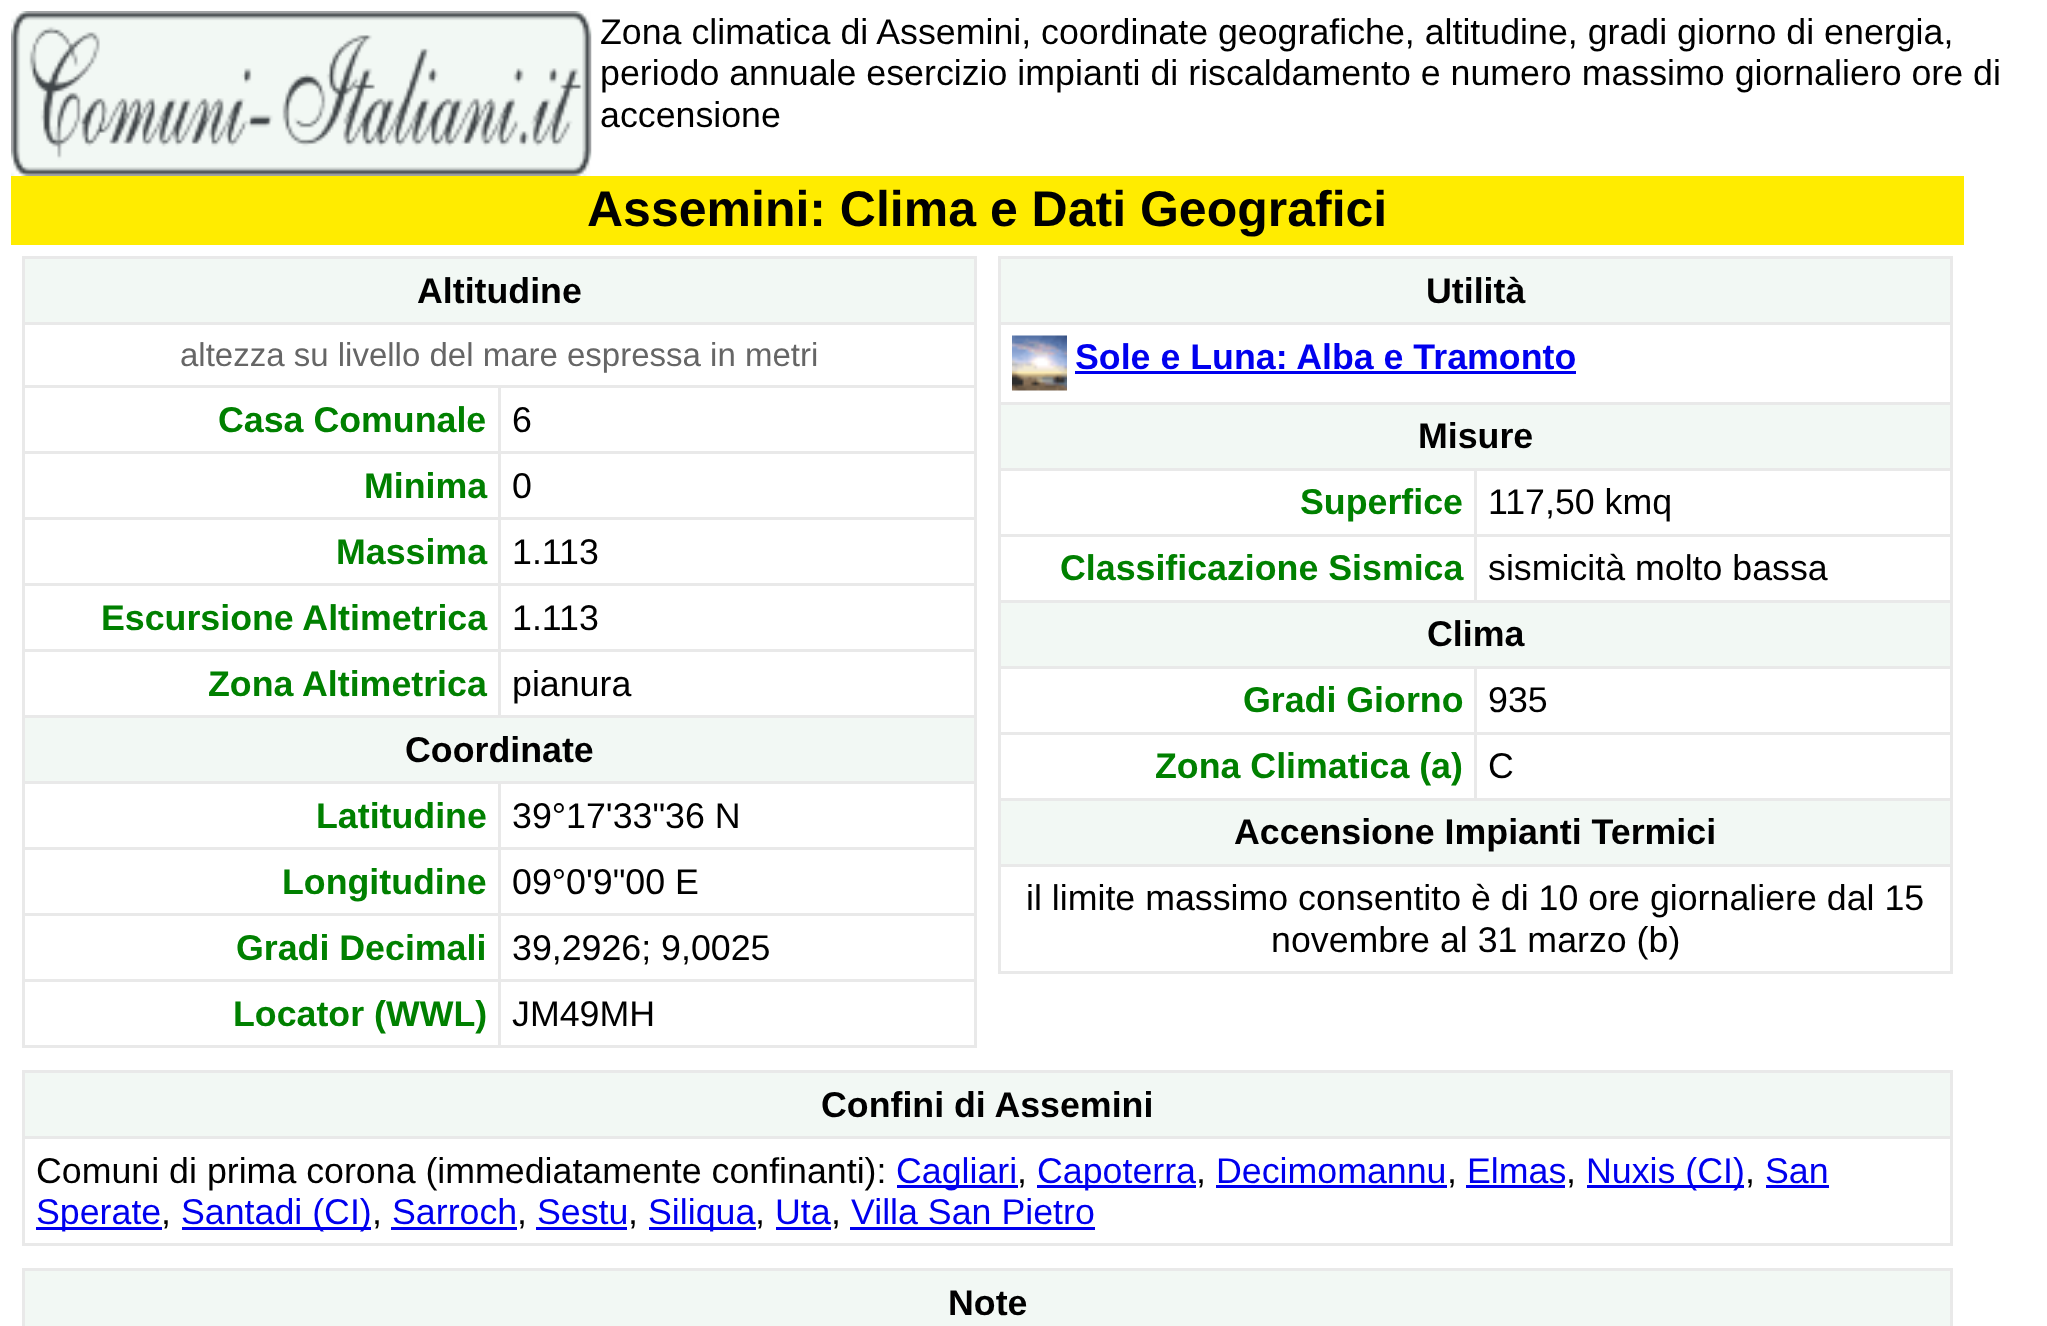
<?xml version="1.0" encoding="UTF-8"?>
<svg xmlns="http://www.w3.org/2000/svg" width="2047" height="1326">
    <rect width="100%" height="100%" fill="#FFFFFF"/>
    <image x="11" y="11" width="581" height="165" href="img_01.png"/>
    <text font-family="Liberation Sans" font-size="35.75" fill="#000000">
        <tspan x="600" y="44">Zona climatica di Assemini, coordinate geografiche, altitudine, gradi giorno di energia,</tspan>
        <tspan x="600" y="85">periodo annuale esercizio impianti di riscaldamento e numero massimo giornaliero ore di</tspan>
        <tspan x="600" y="127">accensione</tspan>
    </text>
    <rect x="11" y="176" width="1953" height="69" fill="#FFEC00"/>
    <text x="587" y="226" font-family="Liberation Sans" font-size="50" font-weight="700" fill="#000000">Assemini: Clima e Dati Geografici</text>
    <rect x="22" y="256" width="954" height="3" fill="#E9E9E9"/>
    <rect x="974" y="256" width="3" height="792" fill="#E9E9E9"/>
    <rect x="22" y="1045" width="954" height="3" fill="#E9E9E9"/>
    <rect x="22" y="256" width="3" height="792" fill="#E9E9E9"/>
    <rect x="25" y="259" width="949" height="63" fill="#F2F8F4"/>
    <text x="417" y="303" font-family="Liberation Sans" font-size="35.75" font-weight="700" fill="#000000">Altitudine</text>
    <rect x="22" y="322" width="954" height="3" fill="#E9E9E9"/>
    <text x="180" y="366" font-family="Liberation Sans" font-size="33" fill="#666666">altezza su livello del mare espressa in metri</text>
    <rect x="498" y="385" width="478" height="3" fill="#E9E9E9"/>
    <rect x="498" y="451" width="478" height="3" fill="#E9E9E9"/>
    <rect x="498" y="517" width="478" height="3" fill="#E9E9E9"/>
    <rect x="498" y="583" width="478" height="3" fill="#E9E9E9"/>
    <rect x="498" y="649" width="478" height="3" fill="#E9E9E9"/>
    <rect x="22" y="715" width="954" height="3" fill="#E9E9E9"/>
    <rect x="498" y="649" width="3" height="69" fill="#E9E9E9"/>
    <rect x="22" y="649" width="479" height="3" fill="#E9E9E9"/>
    <rect x="498" y="583" width="3" height="69" fill="#E9E9E9"/>
    <rect x="22" y="583" width="479" height="3" fill="#E9E9E9"/>
    <rect x="498" y="517" width="3" height="69" fill="#E9E9E9"/>
    <rect x="22" y="517" width="479" height="3" fill="#E9E9E9"/>
    <rect x="498" y="451" width="3" height="69" fill="#E9E9E9"/>
    <rect x="22" y="451" width="479" height="3" fill="#E9E9E9"/>
    <rect x="498" y="385" width="3" height="69" fill="#E9E9E9"/>
    <rect x="22" y="385" width="479" height="3" fill="#E9E9E9"/>
    <text x="218" y="432" font-family="Liberation Sans" font-size="35.75" font-weight="700" fill="#008000">Casa Comunale</text>
    <text x="512" y="432" font-family="Liberation Sans" font-size="35.75" fill="#000000">6</text>
    <text x="364" y="498" font-family="Liberation Sans" font-size="35.75" font-weight="700" fill="#008000">Minima</text>
    <text x="512" y="498" font-family="Liberation Sans" font-size="35.75" fill="#000000">0</text>
    <text x="336" y="564" font-family="Liberation Sans" font-size="35.75" font-weight="700" fill="#008000">Massima</text>
    <text x="512" y="564" font-family="Liberation Sans" font-size="35.75" fill="#000000">1.113</text>
    <text x="101" y="630" font-family="Liberation Sans" font-size="35.75" font-weight="700" fill="#008000">Escursione Altimetrica</text>
    <text x="512" y="630" font-family="Liberation Sans" font-size="35.75" fill="#000000">1.113</text>
    <text x="208" y="696" font-family="Liberation Sans" font-size="35.75" font-weight="700" fill="#008000">Zona Altimetrica</text>
    <text x="512" y="696" font-family="Liberation Sans" font-size="35.75" fill="#000000">pianura</text>
    <rect x="25" y="718" width="949" height="63" fill="#F2F8F4"/>
    <text x="405" y="762" font-family="Liberation Sans" font-size="35.75" font-weight="700" fill="#000000">Coordinate</text>
    <rect x="498" y="781" width="478" height="3" fill="#E9E9E9"/>
    <rect x="498" y="847" width="478" height="3" fill="#E9E9E9"/>
    <rect x="498" y="913" width="478" height="3" fill="#E9E9E9"/>
    <rect x="498" y="979" width="478" height="3" fill="#E9E9E9"/>
    <rect x="498" y="979" width="3" height="69" fill="#E9E9E9"/>
    <rect x="22" y="979" width="479" height="3" fill="#E9E9E9"/>
    <rect x="498" y="913" width="3" height="69" fill="#E9E9E9"/>
    <rect x="22" y="913" width="479" height="3" fill="#E9E9E9"/>
    <rect x="498" y="847" width="3" height="69" fill="#E9E9E9"/>
    <rect x="22" y="847" width="479" height="3" fill="#E9E9E9"/>
    <rect x="498" y="781" width="3" height="69" fill="#E9E9E9"/>
    <rect x="22" y="781" width="479" height="3" fill="#E9E9E9"/>
    <text x="316" y="828" font-family="Liberation Sans" font-size="35.75" font-weight="700" fill="#008000">Latitudine</text>
    <text x="512" y="828" font-family="Liberation Sans" font-size="35.75" fill="#000000">39°17'33"36 N</text>
    <text x="282" y="894" font-family="Liberation Sans" font-size="35.75" font-weight="700" fill="#008000">Longitudine</text>
    <text x="512" y="894" font-family="Liberation Sans" font-size="35.75" fill="#000000">09°0'9"00 E</text>
    <text x="236" y="960" font-family="Liberation Sans" font-size="35.75" font-weight="700" fill="#008000">Gradi Decimali</text>
    <text x="512" y="960" font-family="Liberation Sans" font-size="35.75" fill="#000000">39,2926; 9,0025</text>
    <text x="233" y="1026" font-family="Liberation Sans" font-size="35.75" font-weight="700" fill="#008000">Locator (WWL)</text>
    <text x="512" y="1026" font-family="Liberation Sans" font-size="35.75" fill="#000000">JM49MH</text>
    <rect x="998" y="256" width="955" height="3" fill="#E9E9E9"/>
    <rect x="1950" y="256" width="3" height="718" fill="#E9E9E9"/>
    <rect x="998" y="971" width="955" height="3" fill="#E9E9E9"/>
    <rect x="998" y="256" width="3" height="718" fill="#E9E9E9"/>
    <rect x="1001" y="259" width="949" height="63" fill="#F2F8F4"/>
    <text x="1426" y="303" font-family="Liberation Sans" font-size="35.75" font-weight="700" fill="#000000">Utilità</text>
    <rect x="998" y="322" width="955" height="3" fill="#E9E9E9"/>
    <image x="1012" y="335" width="55" height="56" href="img_02.png"/>
    <text x="1075" y="369" font-family="Liberation Sans" font-size="35.75" font-weight="700" fill="#0000EE">Sole e Luna: Alba e Tramonto</text>
    <rect x="1075" y="371" width="501" height="3" fill="#0000EE"/>
    <rect x="1001" y="405" width="949" height="63" fill="#F2F8F4"/>
    <rect x="998" y="402" width="955" height="3" fill="#E9E9E9"/>
    <text x="1418" y="448" font-family="Liberation Sans" font-size="35.75" font-weight="700" fill="#000000">Misure</text>
    <rect x="1474" y="468" width="479" height="3" fill="#E9E9E9"/>
    <rect x="1474" y="534" width="479" height="3" fill="#E9E9E9"/>
    <rect x="998" y="600" width="955" height="3" fill="#E9E9E9"/>
    <rect x="1474" y="534" width="3" height="68" fill="#E9E9E9"/>
    <rect x="998" y="534" width="479" height="3" fill="#E9E9E9"/>
    <rect x="1474" y="468" width="3" height="68" fill="#E9E9E9"/>
    <rect x="998" y="468" width="479" height="3" fill="#E9E9E9"/>
    <text x="1300" y="514" font-family="Liberation Sans" font-size="35.75" font-weight="700" fill="#008000">Superfice</text>
    <text x="1488" y="514" font-family="Liberation Sans" font-size="35.75" fill="#000000">117,50 kmq</text>
    <text x="1060" y="580" font-family="Liberation Sans" font-size="35.75" font-weight="700" fill="#008000">Classificazione Sismica</text>
    <text x="1488" y="580" font-family="Liberation Sans" font-size="35.75" fill="#000000">sismicità molto bassa</text>
    <rect x="1001" y="603" width="949" height="63" fill="#F2F8F4"/>
    <text x="1427" y="646" font-family="Liberation Sans" font-size="35.75" font-weight="700" fill="#000000">Clima</text>
    <rect x="1474" y="666" width="479" height="3" fill="#E9E9E9"/>
    <rect x="1474" y="732" width="479" height="3" fill="#E9E9E9"/>
    <rect x="998" y="798" width="955" height="3" fill="#E9E9E9"/>
    <rect x="1474" y="732" width="3" height="68" fill="#E9E9E9"/>
    <rect x="998" y="732" width="479" height="3" fill="#E9E9E9"/>
    <rect x="1474" y="666" width="3" height="68" fill="#E9E9E9"/>
    <rect x="998" y="666" width="479" height="3" fill="#E9E9E9"/>
    <text x="1243" y="712" font-family="Liberation Sans" font-size="35.75" font-weight="700" fill="#008000">Gradi Giorno</text>
    <text x="1488" y="712" font-family="Liberation Sans" font-size="35.75" fill="#000000">935</text>
    <text x="1155" y="778" font-family="Liberation Sans" font-size="35.75" font-weight="700" fill="#008000">Zona Climatica (a)</text>
    <text x="1488" y="778" font-family="Liberation Sans" font-size="35.75" fill="#000000">C</text>
    <rect x="1001" y="801" width="949" height="63" fill="#F2F8F4"/>
    <text x="1234" y="844" font-family="Liberation Sans" font-size="35.75" font-weight="700" fill="#000000">Accensione Impianti Termici</text>
    <rect x="998" y="864" width="955" height="3" fill="#E9E9E9"/>
    <text x="1026" y="910" font-family="Liberation Sans" font-size="35.75" fill="#000000">il limite massimo consentito è di 10 ore giornaliere dal 15</text>
    <text x="1271" y="952" font-family="Liberation Sans" font-size="35.75" fill="#000000">novembre al 31 marzo (b)</text>
    <rect x="22" y="1070" width="1931" height="3" fill="#E9E9E9"/>
    <rect x="1950" y="1070" width="3" height="176" fill="#E9E9E9"/>
    <rect x="22" y="1243" width="1931" height="3" fill="#E9E9E9"/>
    <rect x="22" y="1070" width="3" height="176" fill="#E9E9E9"/>
    <rect x="25" y="1073" width="1925" height="63" fill="#F2F8F4"/>
    <text x="821" y="1117" font-family="Liberation Sans" font-size="35.75" font-weight="700" fill="#000000">Confini di Assemini</text>
    <rect x="22" y="1136" width="1931" height="3" fill="#E9E9E9"/>
    <text x="36" y="1183" font-family="Liberation Sans" font-size="35.75" fill="#000000">Comuni di prima corona (immediatamente confinanti):</text>
    <rect x="897" y="1185" width="121" height="3" fill="#0000EE"/>
    <text x="896" y="1183" font-family="Liberation Sans" font-size="35.75" fill="#0000EE">Cagliari</text>
    <text x="1017" y="1183" font-family="Liberation Sans" font-size="35.75" fill="#000000">,</text>
    <rect x="1037" y="1185" width="159" height="3" fill="#0000EE"/>
    <text x="1037" y="1183" font-family="Liberation Sans" font-size="35.75" fill="#0000EE">Capoterra</text>
    <text x="1196" y="1183" font-family="Liberation Sans" font-size="35.75" fill="#000000">,</text>
    <text x="1216" y="1183" font-family="Liberation Sans" font-size="35.75" fill="#0000EE">Decimomannu</text>
    <rect x="1216" y="1185" width="231" height="3" fill="#0000EE"/>
    <text x="1447" y="1183" font-family="Liberation Sans" font-size="35.75" fill="#000000">,</text>
    <text x="1467" y="1183" font-family="Liberation Sans" font-size="35.75" fill="#0000EE">Elmas</text>
    <rect x="1466" y="1185" width="99" height="3" fill="#0000EE"/>
    <text x="1566" y="1183" font-family="Liberation Sans" font-size="35.75" fill="#000000">,</text>
    <rect x="1587" y="1185" width="157" height="3" fill="#0000EE"/>
    <text x="1586" y="1183" font-family="Liberation Sans" font-size="35.75" fill="#0000EE">Nuxis (CI)</text>
    <text x="1745" y="1183" font-family="Liberation Sans" font-size="35.75" fill="#000000">,</text>
    <text x="1765" y="1183" font-family="Liberation Sans" font-size="35.75" fill="#0000EE">San</text>
    <rect x="1766" y="1185" width="63" height="3" fill="#0000EE"/>
    <rect x="36" y="1227" width="126" height="3" fill="#0000EE"/>
    <text x="36" y="1224" font-family="Liberation Sans" font-size="35.75" fill="#0000EE">Sperate</text>
    <text x="161" y="1224" font-family="Liberation Sans" font-size="35.75" fill="#000000">,</text>
    <rect x="182" y="1227" width="189" height="3" fill="#0000EE"/>
    <text x="181" y="1224" font-family="Liberation Sans" font-size="35.75" fill="#0000EE">Santadi (CI)</text>
    <text x="372" y="1224" font-family="Liberation Sans" font-size="35.75" fill="#000000">,</text>
    <text x="392" y="1224" font-family="Liberation Sans" font-size="35.75" fill="#0000EE">Sarroch</text>
    <rect x="391" y="1227" width="126" height="3" fill="#0000EE"/>
    <text x="517" y="1224" font-family="Liberation Sans" font-size="35.75" fill="#000000">,</text>
    <text x="537" y="1224" font-family="Liberation Sans" font-size="35.75" fill="#0000EE">Sestu</text>
    <rect x="536" y="1227" width="91" height="3" fill="#0000EE"/>
    <text x="628" y="1224" font-family="Liberation Sans" font-size="35.75" fill="#000000">,</text>
    <rect x="649" y="1227" width="107" height="3" fill="#0000EE"/>
    <text x="648" y="1224" font-family="Liberation Sans" font-size="35.75" fill="#0000EE">Siliqua</text>
    <text x="755" y="1224" font-family="Liberation Sans" font-size="35.75" fill="#000000">,</text>
    <text x="775" y="1224" font-family="Liberation Sans" font-size="35.75" fill="#0000EE">Uta</text>
    <rect x="776" y="1227" width="55" height="3" fill="#0000EE"/>
    <text x="831" y="1224" font-family="Liberation Sans" font-size="35.75" fill="#000000">,</text>
    <text x="851" y="1224" font-family="Liberation Sans" font-size="35.75" fill="#0000EE">Villa San Pietro</text>
    <rect x="850" y="1227" width="245" height="3" fill="#0000EE"/>
    <rect x="22" y="1268" width="1931" height="3" fill="#E9E9E9"/>
    <rect x="1950" y="1268" width="3" height="58" fill="#E9E9E9"/>
    <rect x="22" y="1268" width="3" height="58" fill="#E9E9E9"/>
    <rect x="25" y="1271" width="1925" height="55" fill="#F2F8F4"/>
    <text x="948" y="1315" font-family="Liberation Sans" font-size="35.75" font-weight="700" fill="#000000">Note</text>
</svg>
